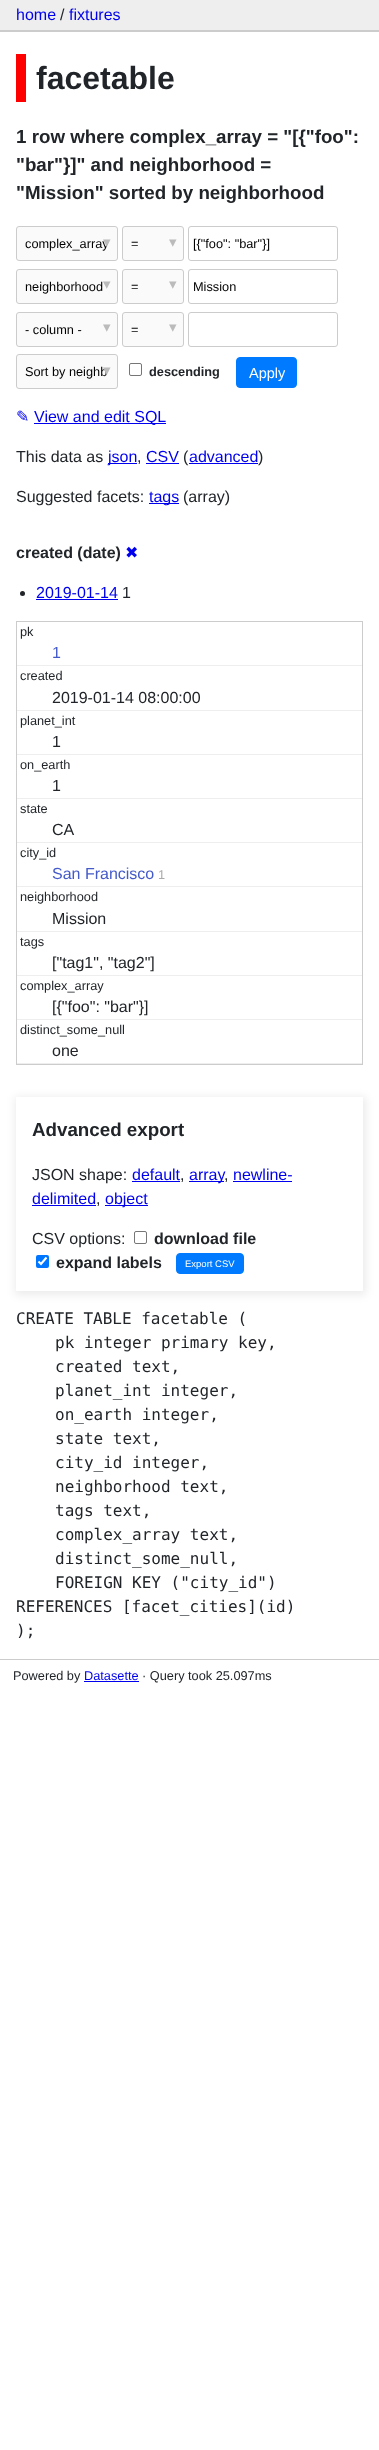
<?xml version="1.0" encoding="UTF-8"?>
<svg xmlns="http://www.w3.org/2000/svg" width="379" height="2450">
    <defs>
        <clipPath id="clip1"><path d="M 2 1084 H 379 V 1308 H 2 Z M 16 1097 H 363 V 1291 H 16 Z" clip-rule="evenodd"/></clipPath>
        <filter id="blur1" x="-50%" y="-200%" width="200%" height="500%"><feGaussianBlur stdDeviation="4"/></filter>
    </defs>
    <rect width="100%" height="100%" fill="#FFFFFF"/>
    <rect x="0" y="0" width="379" height="30" fill="#EEEEEE"/>
    <rect x="0" y="30" width="379" height="2" fill="#CCCCCC"/>
    <text x="16" y="20" font-family="Liberation Sans" font-size="16" fill="#0000EE">home</text>
    <text x="60" y="20" font-family="Liberation Sans" font-size="16" fill="#212529">/</text>
    <text x="69" y="20" font-family="Liberation Sans" font-size="16" fill="#0000EE">fixtures</text>
    <rect x="16" y="54" width="10" height="48" fill="#FF0000"/>
    <text x="36" y="89" font-family="Liberation Sans" font-size="32" font-weight="700" fill="#212529">facetable</text>
    <text font-family="Liberation Sans" font-size="18.75" font-weight="700" fill="#212529">
        <tspan x="16" y="143">1 row where complex_array = "[{"foo":</tspan>
        <tspan x="16" y="171">"bar"}]" and neighborhood =</tspan>
        <tspan x="16" y="199">"Mission" sorted by neighborhood</tspan>
    </text>
    <rect x="16.5" y="226.5" width="101" height="34" rx="2.5" fill="#FAFAFA" stroke="#CCCCCC"/>
    <text x="25" y="248" font-family="Liberation Sans" font-size="12.75" fill="#000000">complex_array</text>
    <text x="103" y="247" font-family="DejaVu Sans" font-size="15" fill="#BBBBBB">▾</text>
    <rect x="122.5" y="226.5" width="61" height="34" rx="2.5" fill="#FAFAFA" stroke="#CCCCCC"/>
    <text x="131" y="248" font-family="Liberation Sans" font-size="12.75" fill="#000000">=</text>
    <text x="169" y="247" font-family="DejaVu Sans" font-size="15" fill="#BBBBBB">▾</text>
    <rect x="188.5" y="226.5" width="149" height="34" rx="2.5" fill="none" stroke="#CCCCCC"/>
    <text x="193" y="248" font-family="Liberation Sans" font-size="12.75" fill="#000000">[{"foo": "bar"}]</text>
    <rect x="16.5" y="269.5" width="101" height="34" rx="2.5" fill="#FAFAFA" stroke="#CCCCCC"/>
    <text x="25" y="291" font-family="Liberation Sans" font-size="12.75" fill="#000000">neighborhood</text>
    <text x="103" y="289" font-family="DejaVu Sans" font-size="15" fill="#BBBBBB">▾</text>
    <rect x="122.5" y="269.5" width="61" height="34" rx="2.5" fill="#FAFAFA" stroke="#CCCCCC"/>
    <text x="131" y="291" font-family="Liberation Sans" font-size="12.75" fill="#000000">=</text>
    <text x="169" y="289" font-family="DejaVu Sans" font-size="15" fill="#BBBBBB">▾</text>
    <rect x="188.5" y="269.5" width="149" height="34" rx="2.5" fill="none" stroke="#CCCCCC"/>
    <text x="193" y="291" font-family="Liberation Sans" font-size="12.75" fill="#000000">Mission</text>
    <rect x="16.5" y="312.5" width="101" height="34" rx="2.5" fill="#FAFAFA" stroke="#CCCCCC"/>
    <text x="25" y="334" font-family="Liberation Sans" font-size="12.75" fill="#000000">- column -</text>
    <text x="103" y="332" font-family="DejaVu Sans" font-size="15" fill="#BBBBBB">▾</text>
    <rect x="122.5" y="312.5" width="61" height="34" rx="2.5" fill="#FAFAFA" stroke="#CCCCCC"/>
    <text x="131" y="334" font-family="Liberation Sans" font-size="12.75" fill="#000000">=</text>
    <text x="169" y="332" font-family="DejaVu Sans" font-size="15" fill="#BBBBBB">▾</text>
    <rect x="188.5" y="312.5" width="149" height="34" rx="2.5" fill="none" stroke="#CCCCCC"/>
    <rect x="16.5" y="354.5" width="101" height="34" rx="2.5" fill="#FAFAFA" stroke="#CCCCCC"/>
    <text x="25" y="376" font-family="Liberation Sans" font-size="12.75" fill="#000000">Sort by neighb</text>
    <text x="103" y="375" font-family="DejaVu Sans" font-size="15" fill="#BBBBBB">▾</text>
    <rect x="129.5" y="363.5" width="12" height="12" rx="1.5" fill="none" stroke="#767676"/>
    <text x="149" y="376" font-family="Liberation Sans" font-size="12.75" font-weight="700" fill="#212529">descending</text>
    <rect x="236.5" y="357.5" width="60" height="30" rx="3.5" fill="#007BFF" stroke="#007BFF"/>
    <text x="249" y="378" font-family="Liberation Sans" font-size="14.5" fill="#FFFFFF">Apply</text>
    <text x="16" y="422" font-family="DejaVu Sans" font-size="16" fill="#0000EE">✎</text>
    <rect x="34" y="423" width="132" height="1" fill="#0000EE"/>
    <text x="34" y="422" font-family="Liberation Sans" font-size="16" fill="#0000EE">View and edit SQL</text>
    <text x="16" y="462" font-family="Liberation Sans" font-size="16" fill="#212529">This data as</text>
    <rect x="108" y="463" width="29" height="1" fill="#0000EE"/>
    <text x="108" y="462" font-family="Liberation Sans" font-size="16" fill="#0000EE">json</text>
    <text x="137" y="462" font-family="Liberation Sans" font-size="16" fill="#212529">,</text>
    <text x="146" y="462" font-family="Liberation Sans" font-size="16" fill="#0000EE">CSV</text>
    <rect x="146" y="463" width="33" height="1" fill="#0000EE"/>
    <text x="183" y="462" font-family="Liberation Sans" font-size="16" fill="#212529">(</text>
    <text x="189" y="462" font-family="Liberation Sans" font-size="16" fill="#0000EE">advanced</text>
    <rect x="189" y="463" width="69" height="1" fill="#0000EE"/>
    <text x="258" y="462" font-family="Liberation Sans" font-size="16" fill="#212529">)</text>
    <text x="16" y="502" font-family="Liberation Sans" font-size="16" fill="#212529">Suggested facets:</text>
    <rect x="149" y="503" width="30" height="1" fill="#0000EE"/>
    <text x="149" y="502" font-family="Liberation Sans" font-size="16" fill="#0000EE">tags</text>
    <text x="183" y="502" font-family="Liberation Sans" font-size="16" fill="#212529">(array)</text>
    <text x="16" y="558" font-family="Liberation Sans" font-size="16" font-weight="700" fill="#212529">created (date)</text>
    <text x="125" y="558" font-family="DejaVu Sans" font-size="16" fill="#0000EE">✖</text>
    <circle cx="22.5" cy="593.5" r="2.5" fill="#212529"/>
    <text x="36" y="598" font-family="Liberation Sans" font-size="16" fill="#0000EE">2019-01-14</text>
    <rect x="36" y="599" width="82" height="1" fill="#0000EE"/>
    <text x="122" y="598" font-family="Liberation Sans" font-size="16" fill="#212529">1</text>
    <rect x="16.5" y="621.5" width="346" height="443" fill="none" stroke="#CCCCCC"/>
    <rect x="17" y="665" width="345" height="1" fill="#EEEEEE"/>
    <text x="20" y="636" font-family="Liberation Sans" font-size="12.75" fill="#212529">pk</text>
    <text x="52" y="658" font-family="Liberation Sans" font-size="16" fill="#445AC8">1</text>
    <rect x="17" y="710" width="345" height="1" fill="#EEEEEE"/>
    <text x="20" y="680" font-family="Liberation Sans" font-size="12.75" fill="#212529">created</text>
    <text x="52" y="703" font-family="Liberation Sans" font-size="16" fill="#212529">2019-01-14 08:00:00</text>
    <rect x="17" y="754" width="345" height="1" fill="#EEEEEE"/>
    <text x="20" y="725" font-family="Liberation Sans" font-size="12.75" fill="#212529">planet_int</text>
    <text x="52" y="747" font-family="Liberation Sans" font-size="16" fill="#212529">1</text>
    <rect x="17" y="798" width="345" height="1" fill="#EEEEEE"/>
    <text x="20" y="769" font-family="Liberation Sans" font-size="12.75" fill="#212529">on_earth</text>
    <text x="52" y="791" font-family="Liberation Sans" font-size="16" fill="#212529">1</text>
    <rect x="17" y="842" width="345" height="1" fill="#EEEEEE"/>
    <text x="20" y="813" font-family="Liberation Sans" font-size="12.75" fill="#212529">state</text>
    <text x="52" y="835" font-family="Liberation Sans" font-size="16" fill="#212529">CA</text>
    <rect x="17" y="886" width="345" height="1" fill="#EEEEEE"/>
    <text x="20" y="857" font-family="Liberation Sans" font-size="12.75" fill="#212529">city_id</text>
    <text x="52" y="879" font-family="Liberation Sans" font-size="16" fill="#445AC8">San Francisco</text>
    <text x="158" y="879" font-family="Liberation Sans" font-size="12.75" fill="#AAAAAA">1</text>
    <rect x="17" y="931" width="345" height="1" fill="#EEEEEE"/>
    <text x="20" y="901" font-family="Liberation Sans" font-size="12.75" fill="#212529">neighborhood</text>
    <text x="52" y="924" font-family="Liberation Sans" font-size="16" fill="#212529">Mission</text>
    <rect x="17" y="975" width="345" height="1" fill="#EEEEEE"/>
    <text x="20" y="946" font-family="Liberation Sans" font-size="12.75" fill="#212529">tags</text>
    <text x="52" y="968" font-family="Liberation Sans" font-size="16" fill="#212529">["tag1", "tag2"]</text>
    <rect x="17" y="1019" width="345" height="1" fill="#EEEEEE"/>
    <text x="20" y="990" font-family="Liberation Sans" font-size="12.75" fill="#212529">complex_array</text>
    <text x="52" y="1012" font-family="Liberation Sans" font-size="16" fill="#212529">[{"foo": "bar"}]</text>
    <rect x="17" y="1063" width="345" height="1" fill="#EEEEEE"/>
    <text x="20" y="1034" font-family="Liberation Sans" font-size="12.75" fill="#212529">distinct_some_null</text>
    <text x="52" y="1056" font-family="Liberation Sans" font-size="16" fill="#212529">one</text>
    <g clip-path="url(#clip1)">
        <rect x="15" y="1097" width="351" height="198" fill="#000000" fill-opacity="0.08" filter="url(#blur1)"/>
    </g>
    <text x="32" y="1136" font-family="Liberation Sans" font-size="18.75" font-weight="700" fill="#212529">Advanced export</text>
    <text x="32" y="1180" font-family="Liberation Sans" font-size="16" fill="#212529">JSON shape:</text>
    <text x="132" y="1180" font-family="Liberation Sans" font-size="16" fill="#0000EE">default</text>
    <rect x="132" y="1181" width="48" height="1" fill="#0000EE"/>
    <text x="180" y="1180" font-family="Liberation Sans" font-size="16" fill="#212529">,</text>
    <rect x="189" y="1181" width="35" height="1" fill="#0000EE"/>
    <text x="189" y="1180" font-family="Liberation Sans" font-size="16" fill="#0000EE">array</text>
    <text x="224" y="1180" font-family="Liberation Sans" font-size="16" fill="#212529">,</text>
    <text x="233" y="1180" font-family="Liberation Sans" font-size="16" fill="#0000EE">newline-</text>
    <rect x="233" y="1181" width="59" height="1" fill="#0000EE"/>
    <text x="32" y="1204" font-family="Liberation Sans" font-size="16" fill="#0000EE">delimited</text>
    <rect x="32" y="1205" width="64" height="1" fill="#0000EE"/>
    <text x="96" y="1204" font-family="Liberation Sans" font-size="16" fill="#212529">,</text>
    <rect x="105" y="1205" width="43" height="1" fill="#0000EE"/>
    <text x="105" y="1204" font-family="Liberation Sans" font-size="16" fill="#0000EE">object</text>
    <text x="32" y="1244" font-family="Liberation Sans" font-size="16" fill="#212529">CSV options:</text>
    <rect x="134.5" y="1231.5" width="12" height="12" rx="1.5" fill="none" stroke="#767676"/>
    <text x="154" y="1244" font-family="Liberation Sans" font-size="16" font-weight="700" fill="#212529">download file</text>
    <rect x="36" y="1255" width="13" height="13" rx="2" fill="#0075FF"/>
    <path d="M 38.5 1261.5 L 41 1264 L 46.5 1257.5" fill="none" stroke="#FFFFFF" stroke-width="2.1"/>
    <text x="56" y="1268" font-family="Liberation Sans" font-size="16" font-weight="700" fill="#212529">expand labels</text>
    <rect x="176.5" y="1253.5" width="67" height="20" rx="3.5" fill="#007BFF" stroke="#007BFF"/>
    <text x="185" y="1267" font-family="Liberation Sans" font-size="9.5" fill="#FFFFFF">Export CSV</text>
    <text x="16" y="1324" font-family="DejaVu Sans Mono" font-size="16" fill="#212529">CREATE TABLE facetable (</text>
    <text font-family="DejaVu Sans Mono" font-size="16" fill="#212529">
        <tspan x="55" y="1348">pk integer primary key,</tspan>
        <tspan x="55" y="1372">created text,</tspan>
        <tspan x="55" y="1396">planet_int integer,</tspan>
        <tspan x="55" y="1420">on_earth integer,</tspan>
        <tspan x="55" y="1444">state text,</tspan>
        <tspan x="55" y="1468">city_id integer,</tspan>
        <tspan x="55" y="1492">neighborhood text,</tspan>
        <tspan x="55" y="1516">tags text,</tspan>
        <tspan x="55" y="1540">complex_array text,</tspan>
        <tspan x="55" y="1564">distinct_some_null,</tspan>
        <tspan x="55" y="1588">FOREIGN KEY ("city_id")</tspan>
    </text>
    <text font-family="DejaVu Sans Mono" font-size="16" fill="#212529">
        <tspan x="16" y="1612">REFERENCES [facet_cities](id)</tspan>
        <tspan x="16" y="1636">);</tspan>
    </text>
    <rect x="0" y="1659" width="379" height="1" fill="#CCCCCC"/>
    <text x="13" y="1680" font-family="Liberation Sans" font-size="12.75" fill="#212529">Powered by</text>
    <text x="84" y="1680" font-family="Liberation Sans" font-size="12.75" fill="#0000EE">Datasette</text>
    <rect x="84" y="1681" width="55" height="1" fill="#0000EE"/>
    <text x="142" y="1680" font-family="Liberation Sans" font-size="12.75" fill="#212529">· Query took 25.097ms</text>
</svg>
